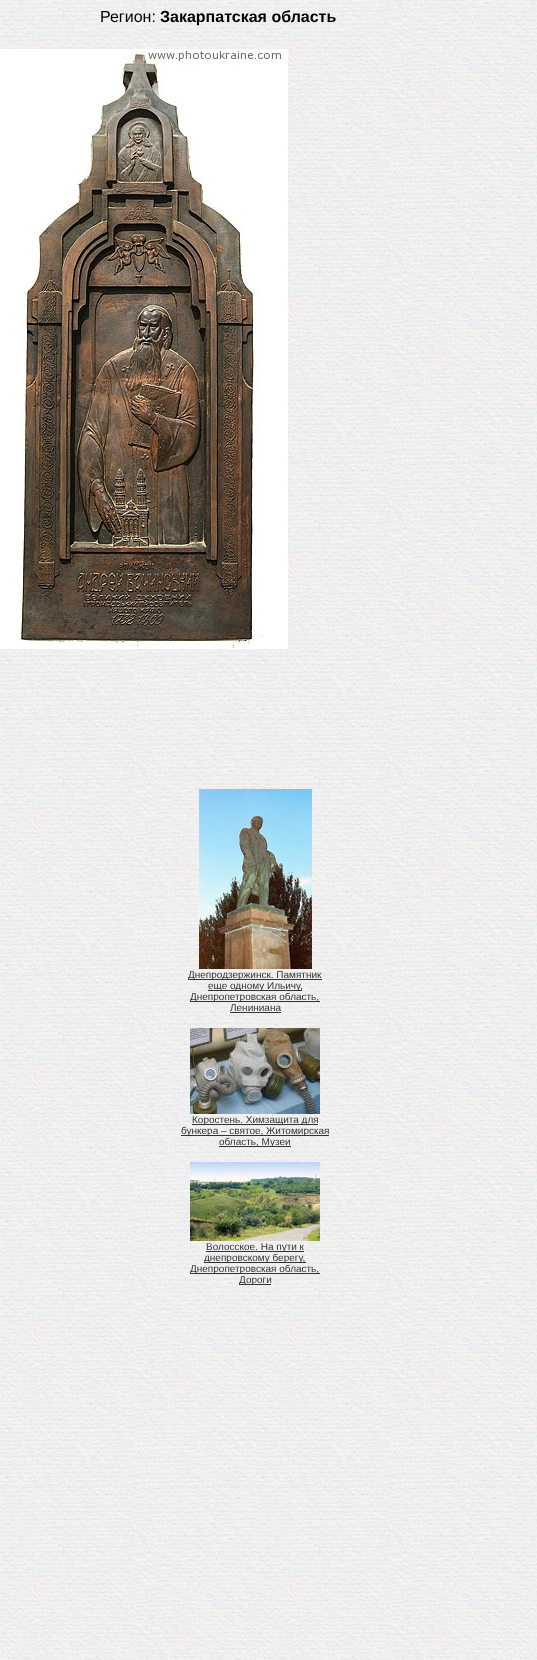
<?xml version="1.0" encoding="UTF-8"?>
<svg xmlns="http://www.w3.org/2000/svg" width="537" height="1660">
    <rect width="100%" height="100%" fill="#FFFFFF"/>
    <image x="0" y="0" width="537" height="1660" href="img_01.png"/>
    <text x="100" y="22" font-family="Liberation Sans" font-size="16" fill="#000000">Регион:</text>
    <text x="160" y="22" font-family="Liberation Sans" font-size="16" font-weight="700" fill="#000000">Закарпатская область</text>
    <image x="0" y="49" width="288" height="600" href="img_02.png"/>
    <image x="199" y="789" width="113" height="180" href="img_03.png"/>
    <rect x="188" y="979" width="134" height="1" fill="#333333"/>
    <text x="188" y="978" font-family="Liberation Sans" font-size="10" fill="#333333">Днепродзержинск. Памятник</text>
    <rect x="208" y="990" width="94" height="1" fill="#333333"/>
    <text x="208" y="989" font-family="Liberation Sans" font-size="10" fill="#333333">еще одному Ильичу,</text>
    <rect x="190" y="1001" width="130" height="1" fill="#333333"/>
    <text x="190" y="1000" font-family="Liberation Sans" font-size="10" fill="#333333">Днепропетровская область,</text>
    <text x="230" y="1011" font-family="Liberation Sans" font-size="10" fill="#333333">Лениниана</text>
    <rect x="230" y="1012" width="51" height="1" fill="#333333"/>
    <image x="190" y="1028" width="130" height="86" href="img_04.png"/>
    <rect x="192" y="1124" width="126" height="1" fill="#333333"/>
    <text x="192" y="1123" font-family="Liberation Sans" font-size="10" fill="#333333">Коростень. Химзащита для</text>
    <rect x="181" y="1135" width="148" height="1" fill="#333333"/>
    <text x="181" y="1134" font-family="Liberation Sans" font-size="10" fill="#333333">бункера – святое, Житомирская</text>
    <rect x="219" y="1146" width="72" height="1" fill="#333333"/>
    <text x="219" y="1145" font-family="Liberation Sans" font-size="10" fill="#333333">область, Музеи</text>
    <image x="190" y="1162" width="130" height="79" href="img_05.png"/>
    <rect x="206" y="1251" width="98" height="1" fill="#333333"/>
    <text x="206" y="1250" font-family="Liberation Sans" font-size="10" fill="#333333">Волосское. На пути к</text>
    <rect x="204" y="1262" width="102" height="1" fill="#333333"/>
    <text x="204" y="1261" font-family="Liberation Sans" font-size="10" fill="#333333">днепровскому берегу,</text>
    <rect x="190" y="1273" width="130" height="1" fill="#333333"/>
    <text x="190" y="1272" font-family="Liberation Sans" font-size="10" fill="#333333">Днепропетровская область,</text>
    <rect x="239" y="1284" width="32" height="1" fill="#333333"/>
    <text x="239" y="1283" font-family="Liberation Sans" font-size="10" fill="#333333">Дороги</text>
</svg>
